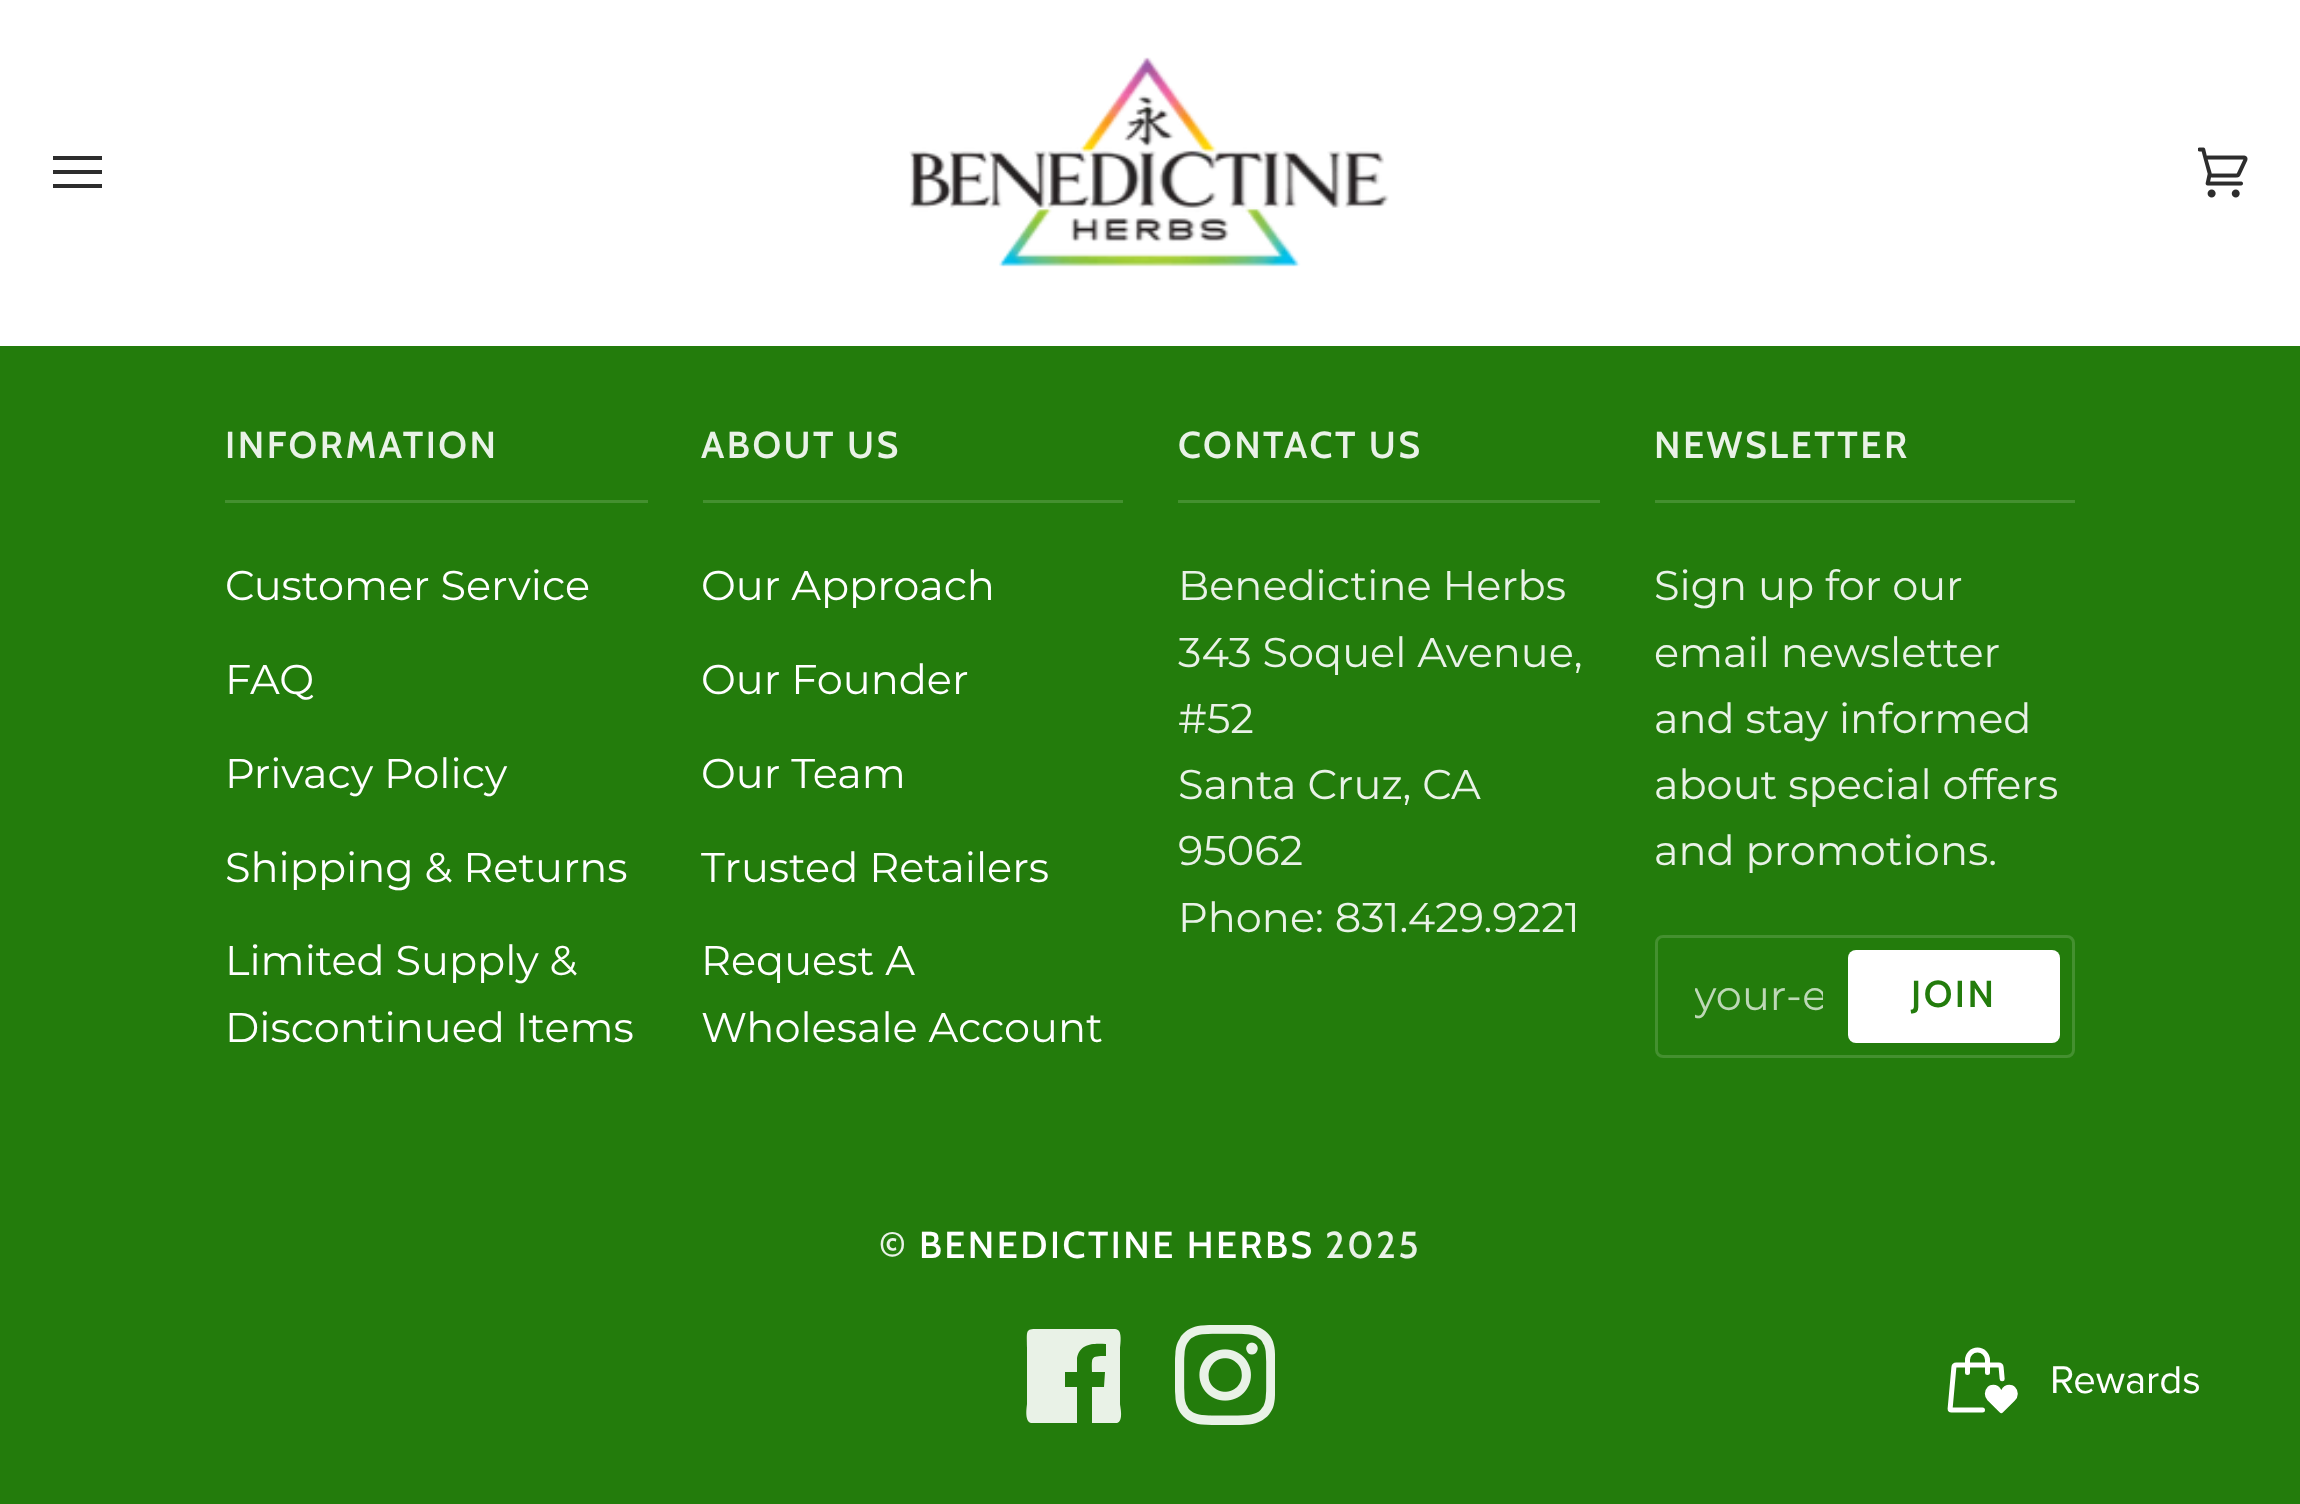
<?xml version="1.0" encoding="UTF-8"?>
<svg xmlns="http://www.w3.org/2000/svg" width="2300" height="1504">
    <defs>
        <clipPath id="clip1"><rect x="53" y="135" width="50" height="75"/></clipPath>
        <clipPath id="clip2"><rect x="1695" y="970" width="128" height="50"/></clipPath>
    </defs>
    <rect width="100%" height="100%" fill="#237C0C"/>
    <rect x="0" y="0" width="2300" height="346" fill="#FFFFFF"/>
    <g clip-path="url(#clip1)">
        <path d="M 52 156 H 102 V 160 H 52 Z M 52 170 H 102 V 174 H 52 Z M 52 184 H 102 V 188 H 52 Z" fill="#2D2D2D"/>
    </g>
    <image x="909" y="57" width="480" height="210" href="img_01.png"/>
    <image x="2198" y="147" width="50" height="51" href="img_02.png"/>
    <rect x="225" y="500" width="423" height="3" fill="#449030"/>
    <text x="225" y="458" font-family="Cabin" font-size="37.5" font-weight="600" letter-spacing="2.5" fill="#E9F2E7">INFORMATION</text>
    <text x="225" y="600" font-family="Montserrat" font-size="41.5" fill="#FFFFFF">Customer Service</text>
    <text x="225" y="694" font-family="Montserrat" font-size="41.5" fill="#FFFFFF">FAQ</text>
    <text x="225" y="788" font-family="Montserrat" font-size="41.5" fill="#FFFFFF">Privacy Policy</text>
    <text x="225" y="882" font-family="Montserrat" font-size="41.5" fill="#FFFFFF">Shipping &amp; Returns</text>
    <text font-family="Montserrat" font-size="41.5" fill="#FFFFFF">
        <tspan x="225" y="975">Limited Supply &amp;</tspan>
        <tspan x="225" y="1042">Discontinued Items</tspan>
    </text>
    <rect x="703" y="500" width="420" height="3" fill="#449030"/>
    <text x="701" y="458" font-family="Cabin" font-size="37.5" font-weight="600" letter-spacing="2.5" fill="#E9F2E7">ABOUT US</text>
    <text x="701" y="600" font-family="Montserrat" font-size="41.5" fill="#FFFFFF">Our Approach</text>
    <text x="701" y="694" font-family="Montserrat" font-size="41.5" fill="#FFFFFF">Our Founder</text>
    <text x="701" y="788" font-family="Montserrat" font-size="41.5" fill="#FFFFFF">Our Team</text>
    <text x="701" y="882" font-family="Montserrat" font-size="41.5" fill="#FFFFFF">Trusted Retailers</text>
    <text font-family="Montserrat" font-size="41.5" fill="#FFFFFF">
        <tspan x="701" y="975">Request A</tspan>
        <tspan x="701" y="1042">Wholesale Account</tspan>
    </text>
    <rect x="1178" y="500" width="422" height="3" fill="#449030"/>
    <text x="1178" y="458" font-family="Cabin" font-size="37.5" font-weight="600" letter-spacing="2.5" fill="#E9F2E7">CONTACT US</text>
    <text font-family="Montserrat" font-size="41.5" fill="#E9F2E7">
        <tspan x="1178" y="600">Benedictine Herbs</tspan>
        <tspan x="1178" y="667">343 Soquel Avenue,</tspan>
        <tspan x="1178" y="733">#52</tspan>
        <tspan x="1178" y="799">Santa Cruz, CA</tspan>
        <tspan x="1178" y="865">95062</tspan>
        <tspan x="1178" y="932">Phone: 831.429.9221</tspan>
    </text>
    <rect x="1655" y="500" width="420" height="3" fill="#449030"/>
    <text x="1654" y="458" font-family="Cabin" font-size="37.5" font-weight="600" letter-spacing="2.5" fill="#E9F2E7">NEWSLETTER</text>
    <text font-family="Montserrat" font-size="41.5" fill="#E9F2E7">
        <tspan x="1654" y="600">Sign up for our</tspan>
        <tspan x="1654" y="667">email newsletter</tspan>
        <tspan x="1654" y="733">and stay informed</tspan>
        <tspan x="1654" y="799">about special offers</tspan>
        <tspan x="1654" y="865">and promotions.</tspan>
    </text>
    <rect x="1656.5" y="936.5" width="417" height="120" rx="6.5" fill="none" stroke="#449030" stroke-width="3"/>
    <g clip-path="url(#clip2)">
        <text x="1694" y="1010" font-family="Montserrat" font-size="41.5" fill="#BDD8B6">your-e</text>
    </g>
    <rect x="1848" y="950" width="212" height="93" rx="8" fill="#FFFFFF"/>
    <text x="1911" y="1007" font-family="Cabin" font-size="37.5" font-weight="600" letter-spacing="2.5" fill="#237C0C">JOIN</text>
    <text x="879" y="1258" font-family="Cabin" font-size="37.5" font-weight="500" letter-spacing="2.5" fill="#E9F2E7">©</text>
    <text x="919" y="1258" font-family="Cabin" font-size="37.5" font-weight="500" letter-spacing="2.5" fill="#FFFFFF">BENEDICTINE HERBS</text>
    <text x="1325" y="1258" font-family="Cabin" font-size="37.5" font-weight="500" letter-spacing="2.5" fill="#E9F2E7">2025</text>
    <path d="M 1115 1329 C 1117 1329 1118 1330 1119 1331 C 1122 1335 1120 1347 1120 1348 V 1404 C 1120 1406 1124 1421 1117 1423 H 1092 V 1387 H 1104 L 1105 1372 H 1092 C 1092 1357 1090 1356 1106 1356 V 1344 C 1094 1343 1080 1343 1077 1358 V 1372 H 1065 V 1387 H 1077 V 1423 H 1031 C 1024 1421 1027 1406 1027 1404 V 1348 C 1027 1327 1024 1329 1046 1329 Z" fill="#E9F2E7"/>
    <image x="1175" y="1325" width="100" height="100" href="img_03.png"/>
    <image x="1947" y="1347" width="252" height="67" href="img_04.png"/>
</svg>
